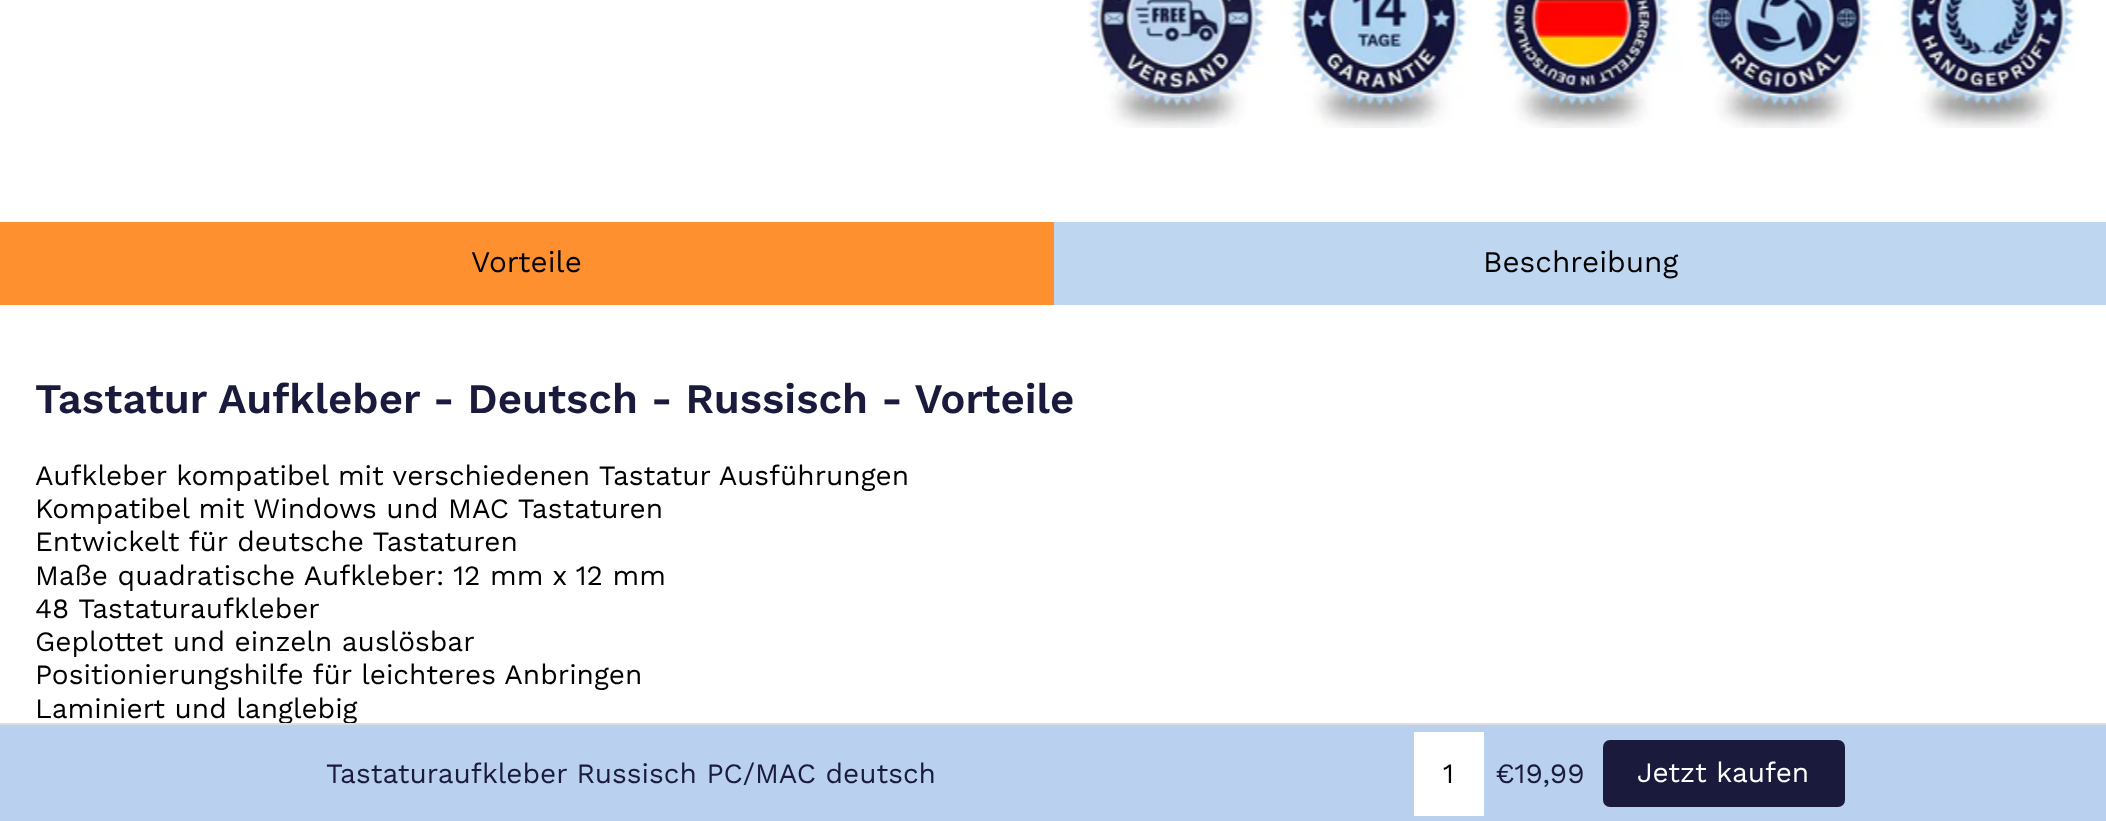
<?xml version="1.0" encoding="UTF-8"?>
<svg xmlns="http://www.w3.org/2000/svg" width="2106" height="821">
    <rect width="100%" height="100%" fill="#FFFFFF"/>
    <image x="1088" y="0" width="988" height="128" href="img_01.png"/>
    <rect x="0" y="222" width="1054" height="83" fill="#FF9030"/>
    <text x="471" y="272" font-family="Work Sans" font-size="29.75" fill="#000000">Vorteile</text>
    <rect x="1054" y="222" width="1052" height="83" fill="#BFD6F1"/>
    <text x="1483" y="272" font-family="Work Sans" font-size="29.75" fill="#000000">Beschreibung</text>
    <text x="35" y="413" font-family="Work Sans" font-size="42" font-weight="600" fill="#1A1A3C">Tastatur Aufkleber - Deutsch - Russisch - Vorteile</text>
    <text font-family="Work Sans" font-size="28" fill="#000000">
        <tspan x="35" y="485">Aufkleber kompatibel mit verschiedenen Tastatur Ausführungen</tspan>
        <tspan x="35" y="518">Kompatibel mit Windows und MAC Tastaturen</tspan>
        <tspan x="35" y="551">Entwickelt für deutsche Tastaturen</tspan>
        <tspan x="35" y="585">Maße quadratische Aufkleber: 12 mm x 12 mm</tspan>
        <tspan x="35" y="618">48 Tastaturaufkleber</tspan>
        <tspan x="35" y="651">Geplottet und einzeln auslösbar</tspan>
        <tspan x="35" y="684">Positionierungshilfe für leichteres Anbringen</tspan>
        <tspan x="35" y="718">Laminiert und langlebig</tspan>
    </text>
    <rect x="0" y="725" width="2106" height="96" fill="#B9D1EF"/>
    <rect x="0" y="723" width="2106" height="2" fill="#DDDDDD"/>
    <text x="326" y="783" font-family="Work Sans" font-size="28" fill="#1A1A3C">Tastaturaufkleber Russisch PC/MAC deutsch</text>
    <rect x="1414" y="732" width="70" height="84" fill="#FFFFFF"/>
    <text x="1443" y="783" font-family="Work Sans" font-size="28" fill="#000000">1</text>
    <text x="1495" y="783" font-family="Work Sans" font-size="28" fill="#1A1A3C">€19,99</text>
    <rect x="1603" y="740" width="242" height="67" rx="7" fill="#1A1A3C"/>
    <text x="1637" y="782" font-family="Work Sans" font-size="28" fill="#FFFFFF">Jetzt kaufen</text>
</svg>
